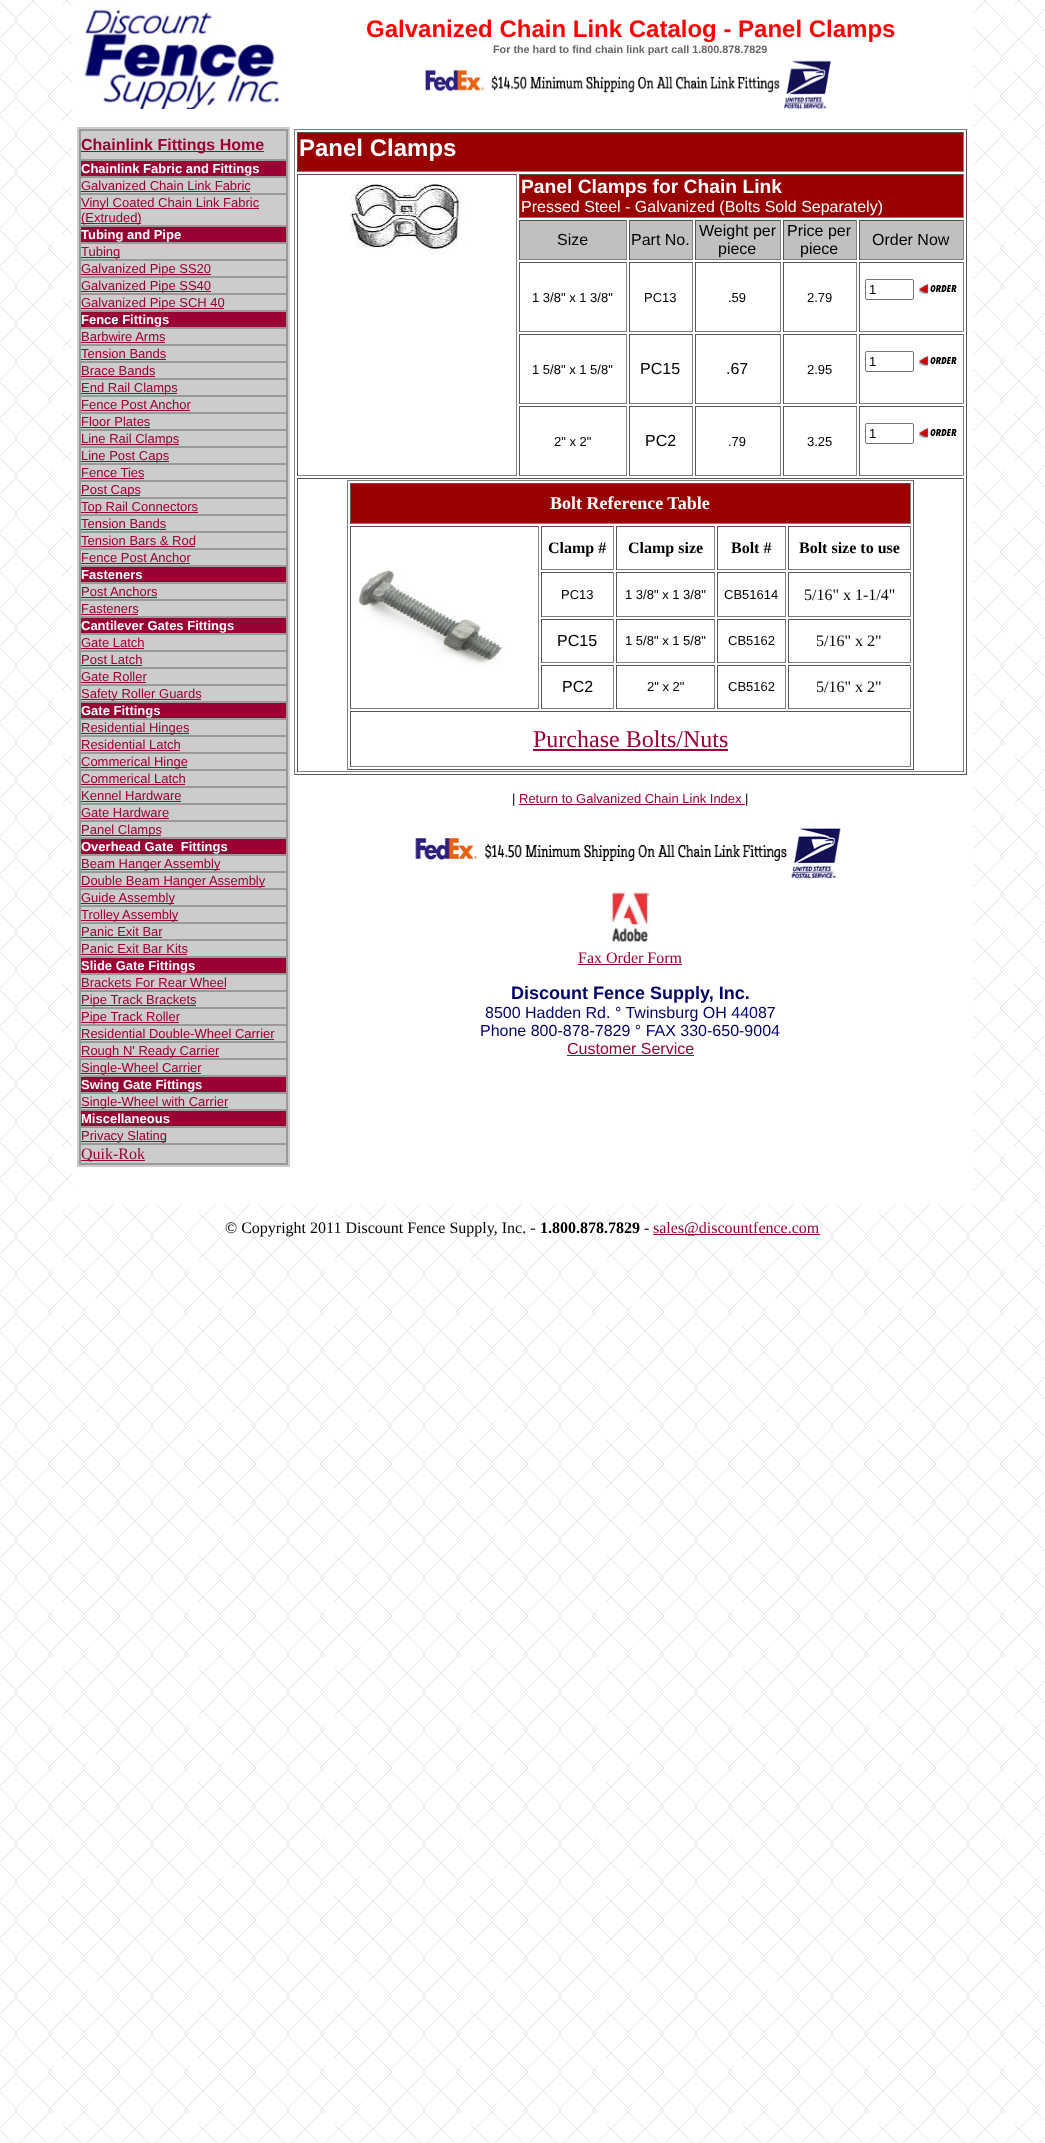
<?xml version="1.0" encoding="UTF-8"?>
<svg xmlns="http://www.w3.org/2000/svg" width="1045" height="2143">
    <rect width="100%" height="100%" fill="#FFFFFF"/>
    <image x="0" y="0" width="1045" height="2143" href="img_01.png"/>
    <rect x="73" y="0" width="900" height="1204" fill="#FFFFFF"/>
    <image x="83" y="6" width="201" height="103" href="img_02.png"/>
    <text x="366" y="37" font-family="Liberation Sans" font-size="24" font-weight="700" fill="#FF0000">Galvanized Chain Link Catalog - Panel Clamps</text>
    <text x="493" y="53" font-family="Liberation Sans" font-size="10.8" font-weight="700" fill="#666666">For the hard to find chain link part call 1.800.878.7829</text>
    <image x="425" y="55" width="406" height="54" href="img_03.png"/>
    <rect x="77" y="127" width="213" height="1040" fill="#CCCCCC"/>
    <rect x="79.5" y="129.5" width="208" height="1035" fill="none" stroke="#999999"/>
    <rect x="80.5" y="130.5" width="206" height="29" fill="none" stroke="#999999"/>
    <rect x="81" y="151" width="183" height="1" fill="#990033"/>
    <text x="81" y="150" font-family="Liberation Sans" font-size="16" font-weight="700" fill="#990033">Chainlink Fittings Home</text>
    <rect x="80.5" y="160.5" width="206" height="16" fill="#990033" stroke="#999999"/>
    <text x="81" y="173" font-family="Liberation Sans" font-size="13" font-weight="700" fill="#FFFFFF">Chainlink Fabric and Fittings</text>
    <rect x="80.5" y="177.5" width="206" height="16" fill="none" stroke="#999999"/>
    <text x="81" y="190" font-family="Liberation Sans" font-size="13" fill="#990033">Galvanized Chain Link Fabric</text>
    <rect x="81" y="191" width="169" height="1" fill="#990033"/>
    <rect x="80.5" y="194.5" width="206" height="31" fill="none" stroke="#999999"/>
    <rect x="81" y="208" width="178" height="1" fill="#990033"/>
    <text x="81" y="207" font-family="Liberation Sans" font-size="13" fill="#990033">Vinyl Coated Chain Link Fabric</text>
    <rect x="81" y="223" width="60" height="1" fill="#990033"/>
    <text x="81" y="222" font-family="Liberation Sans" font-size="13" fill="#990033">(Extruded)</text>
    <rect x="80.5" y="226.5" width="206" height="16" fill="#990033" stroke="#999999"/>
    <text x="81" y="239" font-family="Liberation Sans" font-size="13" font-weight="700" fill="#FFFFFF">Tubing and Pipe</text>
    <rect x="80.5" y="243.5" width="206" height="16" fill="none" stroke="#999999"/>
    <rect x="81" y="257" width="39" height="1" fill="#990033"/>
    <text x="81" y="256" font-family="Liberation Sans" font-size="13" fill="#990033">Tubing</text>
    <rect x="80.5" y="260.5" width="206" height="16" fill="none" stroke="#999999"/>
    <rect x="81" y="274" width="130" height="1" fill="#990033"/>
    <text x="81" y="273" font-family="Liberation Sans" font-size="13" fill="#990033">Galvanized Pipe SS20</text>
    <rect x="80.5" y="277.5" width="206" height="16" fill="none" stroke="#999999"/>
    <rect x="81" y="291" width="130" height="1" fill="#990033"/>
    <text x="81" y="290" font-family="Liberation Sans" font-size="13" fill="#990033">Galvanized Pipe SS40</text>
    <rect x="80.5" y="294.5" width="206" height="16" fill="none" stroke="#999999"/>
    <rect x="81" y="308" width="143" height="1" fill="#990033"/>
    <text x="81" y="307" font-family="Liberation Sans" font-size="13" fill="#990033">Galvanized Pipe SCH 40</text>
    <rect x="80.5" y="311.5" width="206" height="16" fill="#990033" stroke="#999999"/>
    <text x="81" y="324" font-family="Liberation Sans" font-size="13" font-weight="700" fill="#FFFFFF">Fence Fittings</text>
    <rect x="80.5" y="328.5" width="206" height="16" fill="none" stroke="#999999"/>
    <text x="81" y="341" font-family="Liberation Sans" font-size="13" fill="#990033">Barbwire Arms</text>
    <rect x="81" y="342" width="84" height="1" fill="#990033"/>
    <rect x="80.5" y="345.5" width="206" height="16" fill="none" stroke="#999999"/>
    <text x="81" y="358" font-family="Liberation Sans" font-size="13" fill="#990033">Tension Bands</text>
    <rect x="81" y="359" width="85" height="1" fill="#990033"/>
    <rect x="80.5" y="362.5" width="206" height="16" fill="none" stroke="#999999"/>
    <text x="81" y="375" font-family="Liberation Sans" font-size="13" fill="#990033">Brace Bands</text>
    <rect x="81" y="376" width="74" height="1" fill="#990033"/>
    <rect x="80.5" y="379.5" width="206" height="16" fill="none" stroke="#999999"/>
    <rect x="81" y="393" width="96" height="1" fill="#990033"/>
    <text x="81" y="392" font-family="Liberation Sans" font-size="13" fill="#990033">End Rail Clamps</text>
    <rect x="80.5" y="396.5" width="206" height="16" fill="none" stroke="#999999"/>
    <text x="81" y="409" font-family="Liberation Sans" font-size="13" fill="#990033">Fence Post Anchor</text>
    <rect x="81" y="410" width="109" height="1" fill="#990033"/>
    <rect x="80.5" y="413.5" width="206" height="16" fill="none" stroke="#999999"/>
    <text x="81" y="426" font-family="Liberation Sans" font-size="13" fill="#990033">Floor Plates</text>
    <rect x="81" y="427" width="69" height="1" fill="#990033"/>
    <rect x="80.5" y="430.5" width="206" height="16" fill="none" stroke="#999999"/>
    <rect x="81" y="444" width="98" height="1" fill="#990033"/>
    <text x="81" y="443" font-family="Liberation Sans" font-size="13" fill="#990033">Line Rail Clamps</text>
    <rect x="80.5" y="447.5" width="206" height="16" fill="none" stroke="#999999"/>
    <rect x="81" y="461" width="88" height="1" fill="#990033"/>
    <text x="81" y="460" font-family="Liberation Sans" font-size="13" fill="#990033">Line Post Caps</text>
    <rect x="80.5" y="464.5" width="206" height="16" fill="none" stroke="#999999"/>
    <text x="81" y="477" font-family="Liberation Sans" font-size="13" fill="#990033">Fence Ties</text>
    <rect x="81" y="478" width="63" height="1" fill="#990033"/>
    <rect x="80.5" y="481.5" width="206" height="16" fill="none" stroke="#999999"/>
    <rect x="81" y="495" width="59" height="1" fill="#990033"/>
    <text x="81" y="494" font-family="Liberation Sans" font-size="13" fill="#990033">Post Caps</text>
    <rect x="80.5" y="498.5" width="206" height="16" fill="none" stroke="#999999"/>
    <rect x="81" y="512" width="117" height="1" fill="#990033"/>
    <text x="81" y="511" font-family="Liberation Sans" font-size="13" fill="#990033">Top Rail Connectors</text>
    <rect x="80.5" y="515.5" width="206" height="16" fill="none" stroke="#999999"/>
    <text x="81" y="528" font-family="Liberation Sans" font-size="13" fill="#990033">Tension Bands</text>
    <rect x="81" y="529" width="85" height="1" fill="#990033"/>
    <rect x="80.5" y="532.5" width="206" height="16" fill="none" stroke="#999999"/>
    <text x="81" y="545" font-family="Liberation Sans" font-size="13" fill="#990033">Tension Bars &amp; Rod</text>
    <rect x="81" y="546" width="114" height="1" fill="#990033"/>
    <rect x="80.5" y="549.5" width="206" height="16" fill="none" stroke="#999999"/>
    <text x="81" y="562" font-family="Liberation Sans" font-size="13" fill="#990033">Fence Post Anchor</text>
    <rect x="81" y="563" width="109" height="1" fill="#990033"/>
    <rect x="80.5" y="566.5" width="206" height="16" fill="#990033" stroke="#999999"/>
    <text x="81" y="579" font-family="Liberation Sans" font-size="13" font-weight="700" fill="#FFFFFF">Fasteners</text>
    <rect x="80.5" y="583.5" width="206" height="16" fill="none" stroke="#999999"/>
    <text x="81" y="596" font-family="Liberation Sans" font-size="13" fill="#990033">Post Anchors</text>
    <rect x="81" y="597" width="76" height="1" fill="#990033"/>
    <rect x="80.5" y="600.5" width="206" height="16" fill="none" stroke="#999999"/>
    <text x="81" y="613" font-family="Liberation Sans" font-size="13" fill="#990033">Fasteners</text>
    <rect x="81" y="614" width="57" height="1" fill="#990033"/>
    <rect x="80.5" y="617.5" width="206" height="16" fill="#990033" stroke="#999999"/>
    <text x="81" y="630" font-family="Liberation Sans" font-size="13" font-weight="700" fill="#FFFFFF">Cantilever Gates Fittings</text>
    <rect x="80.5" y="634.5" width="206" height="16" fill="none" stroke="#999999"/>
    <text x="81" y="647" font-family="Liberation Sans" font-size="13" fill="#990033">Gate Latch</text>
    <rect x="81" y="648" width="63" height="1" fill="#990033"/>
    <rect x="80.5" y="651.5" width="206" height="16" fill="none" stroke="#999999"/>
    <text x="81" y="664" font-family="Liberation Sans" font-size="13" fill="#990033">Post Latch</text>
    <rect x="81" y="665" width="61" height="1" fill="#990033"/>
    <rect x="80.5" y="668.5" width="206" height="16" fill="none" stroke="#999999"/>
    <text x="81" y="681" font-family="Liberation Sans" font-size="13" fill="#990033">Gate Roller</text>
    <rect x="81" y="682" width="65" height="1" fill="#990033"/>
    <rect x="80.5" y="685.5" width="206" height="16" fill="none" stroke="#999999"/>
    <rect x="81" y="699" width="120" height="1" fill="#990033"/>
    <text x="81" y="698" font-family="Liberation Sans" font-size="13" fill="#990033">Safety Roller Guards</text>
    <rect x="80.5" y="702.5" width="206" height="16" fill="#990033" stroke="#999999"/>
    <text x="81" y="715" font-family="Liberation Sans" font-size="13" font-weight="700" fill="#FFFFFF">Gate Fittings</text>
    <rect x="80.5" y="719.5" width="206" height="16" fill="none" stroke="#999999"/>
    <rect x="81" y="733" width="108" height="1" fill="#990033"/>
    <text x="81" y="732" font-family="Liberation Sans" font-size="13" fill="#990033">Residential Hinges</text>
    <rect x="80.5" y="736.5" width="206" height="16" fill="none" stroke="#999999"/>
    <text x="81" y="749" font-family="Liberation Sans" font-size="13" fill="#990033">Residential Latch</text>
    <rect x="81" y="750" width="99" height="1" fill="#990033"/>
    <rect x="80.5" y="753.5" width="206" height="16" fill="none" stroke="#999999"/>
    <rect x="81" y="767" width="106" height="1" fill="#990033"/>
    <text x="81" y="766" font-family="Liberation Sans" font-size="13" fill="#990033">Commerical Hinge</text>
    <rect x="80.5" y="770.5" width="206" height="16" fill="none" stroke="#999999"/>
    <text x="81" y="783" font-family="Liberation Sans" font-size="13" fill="#990033">Commerical Latch</text>
    <rect x="81" y="784" width="104" height="1" fill="#990033"/>
    <rect x="80.5" y="787.5" width="206" height="16" fill="none" stroke="#999999"/>
    <text x="81" y="800" font-family="Liberation Sans" font-size="13" fill="#990033">Kennel Hardware</text>
    <rect x="81" y="801" width="100" height="1" fill="#990033"/>
    <rect x="80.5" y="804.5" width="206" height="16" fill="none" stroke="#999999"/>
    <text x="81" y="817" font-family="Liberation Sans" font-size="13" fill="#990033">Gate Hardware</text>
    <rect x="81" y="818" width="88" height="1" fill="#990033"/>
    <rect x="80.5" y="821.5" width="206" height="16" fill="none" stroke="#999999"/>
    <rect x="81" y="835" width="80" height="1" fill="#990033"/>
    <text x="81" y="834" font-family="Liberation Sans" font-size="13" fill="#990033">Panel Clamps</text>
    <rect x="80.5" y="838.5" width="206" height="16" fill="#990033" stroke="#999999"/>
    <text x="81" y="851" font-family="Liberation Sans" font-size="13" font-weight="700" fill="#FFFFFF" xml:space="preserve">Overhead Gate  Fittings</text>
    <rect x="80.5" y="855.5" width="206" height="16" fill="none" stroke="#999999"/>
    <rect x="81" y="869" width="139" height="1" fill="#990033"/>
    <text x="81" y="868" font-family="Liberation Sans" font-size="13" fill="#990033">Beam Hanger Assembly</text>
    <rect x="80.5" y="872.5" width="206" height="16" fill="none" stroke="#999999"/>
    <rect x="81" y="886" width="184" height="1" fill="#990033"/>
    <text x="81" y="885" font-family="Liberation Sans" font-size="13" fill="#990033">Double Beam Hanger Assembly</text>
    <rect x="80.5" y="889.5" width="206" height="16" fill="none" stroke="#999999"/>
    <rect x="81" y="903" width="93" height="1" fill="#990033"/>
    <text x="81" y="902" font-family="Liberation Sans" font-size="13" fill="#990033">Guide Assembly</text>
    <rect x="80.5" y="906.5" width="206" height="16" fill="none" stroke="#999999"/>
    <rect x="81" y="920" width="97" height="1" fill="#990033"/>
    <text x="81" y="919" font-family="Liberation Sans" font-size="13" fill="#990033">Trolley</text>
    <text x="122" y="919" font-family="Liberation Sans" font-size="13" fill="#990033">Assembly</text>
    <rect x="80.5" y="923.5" width="206" height="16" fill="none" stroke="#999999"/>
    <text x="81" y="936" font-family="Liberation Sans" font-size="13" fill="#990033">Panic Exit Bar</text>
    <rect x="81" y="937" width="81" height="1" fill="#990033"/>
    <rect x="80.5" y="940.5" width="206" height="16" fill="none" stroke="#999999"/>
    <text x="81" y="953" font-family="Liberation Sans" font-size="13" fill="#990033">Panic Exit Bar Kits</text>
    <rect x="81" y="954" width="106" height="1" fill="#990033"/>
    <rect x="80.5" y="957.5" width="206" height="16" fill="#990033" stroke="#999999"/>
    <text x="81" y="970" font-family="Liberation Sans" font-size="13" font-weight="700" fill="#FFFFFF">Slide Gate Fittings</text>
    <rect x="80.5" y="974.5" width="206" height="16" fill="none" stroke="#999999"/>
    <text x="81" y="987" font-family="Liberation Sans" font-size="13" fill="#990033">Brackets For Rear Wheel</text>
    <rect x="81" y="988" width="145" height="1" fill="#990033"/>
    <rect x="80.5" y="991.5" width="206" height="16" fill="none" stroke="#999999"/>
    <rect x="81" y="1005" width="115" height="1" fill="#990033"/>
    <text x="81" y="1004" font-family="Liberation Sans" font-size="13" fill="#990033">Pipe Track Brackets</text>
    <rect x="80.5" y="1008.5" width="206" height="16" fill="none" stroke="#999999"/>
    <rect x="81" y="1022" width="98" height="1" fill="#990033"/>
    <text x="81" y="1021" font-family="Liberation Sans" font-size="13" fill="#990033">Pipe Track Roller</text>
    <rect x="80.5" y="1025.5" width="206" height="16" fill="none" stroke="#999999"/>
    <text x="81" y="1038" font-family="Liberation Sans" font-size="13" fill="#990033">Residential Double-Wheel Carrier</text>
    <rect x="81" y="1039" width="193" height="1" fill="#990033"/>
    <rect x="80.5" y="1042.5" width="206" height="16" fill="none" stroke="#999999"/>
    <rect x="81" y="1056" width="138" height="1" fill="#990033"/>
    <text x="81" y="1055" font-family="Liberation Sans" font-size="13" fill="#990033">Rough N' Ready Carrier</text>
    <rect x="80.5" y="1059.5" width="206" height="16" fill="none" stroke="#999999"/>
    <rect x="81" y="1073" width="120" height="1" fill="#990033"/>
    <text x="81" y="1072" font-family="Liberation Sans" font-size="13" fill="#990033">Single-Wheel Carrier</text>
    <rect x="80.5" y="1076.5" width="206" height="16" fill="#990033" stroke="#999999"/>
    <text x="81" y="1089" font-family="Liberation Sans" font-size="13" font-weight="700" fill="#FFFFFF">Swing Gate Fittings</text>
    <rect x="80.5" y="1093.5" width="206" height="16" fill="none" stroke="#999999"/>
    <rect x="81" y="1107" width="147" height="1" fill="#990033"/>
    <text x="81" y="1106" font-family="Liberation Sans" font-size="13" fill="#990033">Single-Wheel with Carrier</text>
    <rect x="80.5" y="1110.5" width="206" height="16" fill="#990033" stroke="#999999"/>
    <text x="81" y="1123" font-family="Liberation Sans" font-size="13" font-weight="700" fill="#FFFFFF">Miscellaneous</text>
    <rect x="80.5" y="1127.5" width="206" height="16" fill="none" stroke="#999999"/>
    <rect x="81" y="1141" width="85" height="1" fill="#990033"/>
    <text x="81" y="1140" font-family="Liberation Sans" font-size="13" fill="#990033">Privacy Slating</text>
    <rect x="80.5" y="1144.5" width="206" height="19" fill="none" stroke="#999999"/>
    <rect x="81" y="1160" width="64" height="1" fill="#990033"/>
    <text x="81" y="1159" font-family="Liberation Serif" font-size="16" fill="#990033">Quik-Rok</text>
    <rect x="294" y="129" width="673" height="1" fill="#808080"/>
    <rect x="966" y="129" width="1" height="646" fill="#555555"/>
    <rect x="294" y="774" width="673" height="1" fill="#555555"/>
    <rect x="294" y="129" width="1" height="646" fill="#808080"/>
    <rect x="298" y="133" width="665" height="38" fill="#990000"/>
    <rect x="297" y="132" width="667" height="1" fill="#555555"/>
    <rect x="963" y="132" width="1" height="40" fill="#808080"/>
    <rect x="297" y="171" width="667" height="1" fill="#808080"/>
    <rect x="297" y="132" width="1" height="40" fill="#555555"/>
    <text x="299" y="156" font-family="Liberation Sans" font-size="24" font-weight="700" fill="#FFFFFF">Panel Clamps</text>
    <rect x="297" y="174" width="220" height="1" fill="#555555"/>
    <rect x="516" y="174" width="1" height="302" fill="#808080"/>
    <rect x="297" y="475" width="220" height="1" fill="#808080"/>
    <rect x="297" y="174" width="1" height="302" fill="#555555"/>
    <image x="349" y="184" width="116" height="70" href="img_04.png"/>
    <rect x="520" y="175" width="443" height="42" fill="#990000"/>
    <rect x="519" y="174" width="445" height="1" fill="#555555"/>
    <rect x="963" y="174" width="1" height="44" fill="#808080"/>
    <rect x="519" y="217" width="445" height="1" fill="#808080"/>
    <rect x="519" y="174" width="1" height="44" fill="#555555"/>
    <text x="521" y="193" font-family="Liberation Sans" font-size="19.25" font-weight="700" fill="#FFFFFF">Panel Clamps for Chain Link</text>
    <text x="521" y="212" font-family="Liberation Sans" font-size="16" fill="#FFFFFF">Pressed Steel - Galvanized (Bolts Sold Separately)</text>
    <rect x="520" y="221" width="106" height="38" fill="#C0C0C0"/>
    <rect x="519" y="220" width="108" height="1" fill="#555555"/>
    <rect x="626" y="220" width="1" height="40" fill="#808080"/>
    <rect x="519" y="259" width="108" height="1" fill="#808080"/>
    <rect x="519" y="220" width="1" height="40" fill="#555555"/>
    <text x="557" y="245" font-family="Liberation Sans" font-size="16" fill="#000000">Size</text>
    <rect x="630" y="221" width="62" height="38" fill="#C0C0C0"/>
    <rect x="629" y="220" width="64" height="1" fill="#555555"/>
    <rect x="692" y="220" width="1" height="40" fill="#808080"/>
    <rect x="629" y="259" width="64" height="1" fill="#808080"/>
    <rect x="629" y="220" width="1" height="40" fill="#555555"/>
    <text x="631" y="245" font-family="Liberation Sans" font-size="16" fill="#000000">Part No.</text>
    <rect x="696" y="221" width="84" height="38" fill="#C0C0C0"/>
    <rect x="695" y="220" width="86" height="1" fill="#555555"/>
    <rect x="780" y="220" width="1" height="40" fill="#808080"/>
    <rect x="695" y="259" width="86" height="1" fill="#808080"/>
    <rect x="695" y="220" width="1" height="40" fill="#555555"/>
    <text x="699" y="236" font-family="Liberation Sans" font-size="16" fill="#000000">Weight per</text>
    <text x="718" y="254" font-family="Liberation Sans" font-size="16" fill="#000000">piece</text>
    <rect x="784" y="221" width="72" height="38" fill="#C0C0C0"/>
    <rect x="783" y="220" width="74" height="1" fill="#555555"/>
    <rect x="856" y="220" width="1" height="40" fill="#808080"/>
    <rect x="783" y="259" width="74" height="1" fill="#808080"/>
    <rect x="783" y="220" width="1" height="40" fill="#555555"/>
    <text x="787" y="236" font-family="Liberation Sans" font-size="16" fill="#000000">Price per</text>
    <text x="800" y="254" font-family="Liberation Sans" font-size="16" fill="#000000">piece</text>
    <rect x="860" y="221" width="103" height="38" fill="#C0C0C0"/>
    <rect x="859" y="220" width="105" height="1" fill="#555555"/>
    <rect x="963" y="220" width="1" height="40" fill="#808080"/>
    <rect x="859" y="259" width="105" height="1" fill="#808080"/>
    <rect x="859" y="220" width="1" height="40" fill="#555555"/>
    <text x="872" y="245" font-family="Liberation Sans" font-size="16" fill="#000000">Order Now</text>
    <rect x="859" y="262" width="105" height="1" fill="#555555"/>
    <rect x="963" y="262" width="1" height="70" fill="#808080"/>
    <rect x="859" y="331" width="105" height="1" fill="#808080"/>
    <rect x="859" y="262" width="1" height="70" fill="#555555"/>
    <rect x="865.5" y="279.5" width="48" height="20" rx="1.5" fill="none" stroke="#767676"/>
    <text x="869" y="294" font-family="Liberation Sans" font-size="13" fill="#000000">1</text>
    <image x="919" y="284" width="38" height="10" href="img_05.png"/>
    <rect x="519" y="262" width="108" height="1" fill="#555555"/>
    <rect x="626" y="262" width="1" height="70" fill="#808080"/>
    <rect x="519" y="331" width="108" height="1" fill="#808080"/>
    <rect x="519" y="262" width="1" height="70" fill="#555555"/>
    <text x="532" y="302" font-family="Liberation Sans" font-size="13" fill="#000000">1 3/8" x 1 3/8"</text>
    <rect x="629" y="262" width="64" height="1" fill="#555555"/>
    <rect x="692" y="262" width="1" height="70" fill="#808080"/>
    <rect x="629" y="331" width="64" height="1" fill="#808080"/>
    <rect x="629" y="262" width="1" height="70" fill="#555555"/>
    <text x="644" y="302" font-family="Liberation Sans" font-size="13" fill="#000000">PC13</text>
    <rect x="695" y="262" width="86" height="1" fill="#555555"/>
    <rect x="780" y="262" width="1" height="70" fill="#808080"/>
    <rect x="695" y="331" width="86" height="1" fill="#808080"/>
    <rect x="695" y="262" width="1" height="70" fill="#555555"/>
    <text x="728" y="302" font-family="Liberation Sans" font-size="13" fill="#000000">.59</text>
    <rect x="783" y="262" width="74" height="1" fill="#555555"/>
    <rect x="856" y="262" width="1" height="70" fill="#808080"/>
    <rect x="783" y="331" width="74" height="1" fill="#808080"/>
    <rect x="783" y="262" width="1" height="70" fill="#555555"/>
    <text x="807" y="302" font-family="Liberation Sans" font-size="13" fill="#000000">2.79</text>
    <rect x="859" y="334" width="105" height="1" fill="#555555"/>
    <rect x="963" y="334" width="1" height="70" fill="#808080"/>
    <rect x="859" y="403" width="105" height="1" fill="#808080"/>
    <rect x="859" y="334" width="1" height="70" fill="#555555"/>
    <rect x="865.5" y="351.5" width="48" height="20" rx="1.5" fill="none" stroke="#767676"/>
    <text x="869" y="366" font-family="Liberation Sans" font-size="13" fill="#000000">1</text>
    <image x="919" y="356" width="38" height="10" href="img_05.png"/>
    <rect x="519" y="334" width="108" height="1" fill="#555555"/>
    <rect x="626" y="334" width="1" height="70" fill="#808080"/>
    <rect x="519" y="403" width="108" height="1" fill="#808080"/>
    <rect x="519" y="334" width="1" height="70" fill="#555555"/>
    <text x="532" y="374" font-family="Liberation Sans" font-size="13" fill="#000000">1 5/8" x 1 5/8"</text>
    <rect x="629" y="334" width="64" height="1" fill="#555555"/>
    <rect x="692" y="334" width="1" height="70" fill="#808080"/>
    <rect x="629" y="403" width="64" height="1" fill="#808080"/>
    <rect x="629" y="334" width="1" height="70" fill="#555555"/>
    <text x="640" y="374" font-family="Liberation Sans" font-size="16" fill="#000000">PC15</text>
    <rect x="695" y="334" width="86" height="1" fill="#555555"/>
    <rect x="780" y="334" width="1" height="70" fill="#808080"/>
    <rect x="695" y="403" width="86" height="1" fill="#808080"/>
    <rect x="695" y="334" width="1" height="70" fill="#555555"/>
    <text x="726" y="374" font-family="Liberation Sans" font-size="16" fill="#000000">.67</text>
    <rect x="783" y="334" width="74" height="1" fill="#555555"/>
    <rect x="856" y="334" width="1" height="70" fill="#808080"/>
    <rect x="783" y="403" width="74" height="1" fill="#808080"/>
    <rect x="783" y="334" width="1" height="70" fill="#555555"/>
    <text x="807" y="374" font-family="Liberation Sans" font-size="13" fill="#000000">2.95</text>
    <rect x="859" y="406" width="105" height="1" fill="#555555"/>
    <rect x="963" y="406" width="1" height="70" fill="#808080"/>
    <rect x="859" y="475" width="105" height="1" fill="#808080"/>
    <rect x="859" y="406" width="1" height="70" fill="#555555"/>
    <rect x="865.5" y="423.5" width="48" height="20" rx="1.5" fill="none" stroke="#767676"/>
    <text x="869" y="438" font-family="Liberation Sans" font-size="13" fill="#000000">1</text>
    <image x="919" y="428" width="38" height="10" href="img_05.png"/>
    <rect x="519" y="406" width="108" height="1" fill="#555555"/>
    <rect x="626" y="406" width="1" height="70" fill="#808080"/>
    <rect x="519" y="475" width="108" height="1" fill="#808080"/>
    <rect x="519" y="406" width="1" height="70" fill="#555555"/>
    <text x="554" y="446" font-family="Liberation Sans" font-size="13" fill="#000000">2" x 2"</text>
    <rect x="629" y="406" width="64" height="1" fill="#555555"/>
    <rect x="692" y="406" width="1" height="70" fill="#808080"/>
    <rect x="629" y="475" width="64" height="1" fill="#808080"/>
    <rect x="629" y="406" width="1" height="70" fill="#555555"/>
    <text x="645" y="446" font-family="Liberation Sans" font-size="16" fill="#000000">PC2</text>
    <rect x="695" y="406" width="86" height="1" fill="#555555"/>
    <rect x="780" y="406" width="1" height="70" fill="#808080"/>
    <rect x="695" y="475" width="86" height="1" fill="#808080"/>
    <rect x="695" y="406" width="1" height="70" fill="#555555"/>
    <text x="728" y="446" font-family="Liberation Sans" font-size="13" fill="#000000">.79</text>
    <rect x="783" y="406" width="74" height="1" fill="#555555"/>
    <rect x="856" y="406" width="1" height="70" fill="#808080"/>
    <rect x="783" y="475" width="74" height="1" fill="#808080"/>
    <rect x="783" y="406" width="1" height="70" fill="#555555"/>
    <text x="807" y="446" font-family="Liberation Sans" font-size="13" fill="#000000">3.25</text>
    <rect x="297" y="478" width="667" height="1" fill="#555555"/>
    <rect x="963" y="478" width="1" height="294" fill="#808080"/>
    <rect x="297" y="771" width="667" height="1" fill="#808080"/>
    <rect x="297" y="478" width="1" height="294" fill="#555555"/>
    <rect x="347" y="480" width="567" height="1" fill="#808080"/>
    <rect x="913" y="480" width="1" height="290" fill="#555555"/>
    <rect x="347" y="769" width="567" height="1" fill="#555555"/>
    <rect x="347" y="480" width="1" height="290" fill="#808080"/>
    <rect x="351" y="484" width="559" height="39" fill="#990000"/>
    <rect x="350" y="483" width="561" height="1" fill="#555555"/>
    <rect x="910" y="483" width="1" height="41" fill="#808080"/>
    <rect x="350" y="523" width="561" height="1" fill="#808080"/>
    <rect x="350" y="483" width="1" height="41" fill="#555555"/>
    <text x="550" y="509" font-family="Liberation Serif" font-size="18" font-weight="700" fill="#FFFFFF">Bolt Reference Table</text>
    <rect x="350" y="526" width="189" height="1" fill="#555555"/>
    <rect x="538" y="526" width="1" height="183" fill="#808080"/>
    <rect x="350" y="708" width="189" height="1" fill="#808080"/>
    <rect x="350" y="526" width="1" height="183" fill="#555555"/>
    <image x="353" y="569" width="152" height="96" href="img_06.png"/>
    <rect x="541" y="526" width="73" height="1" fill="#555555"/>
    <rect x="613" y="526" width="1" height="44" fill="#808080"/>
    <rect x="541" y="569" width="73" height="1" fill="#808080"/>
    <rect x="541" y="526" width="1" height="44" fill="#555555"/>
    <text x="548" y="553" font-family="Liberation Serif" font-size="16" font-weight="700" fill="#000000">Clamp #</text>
    <rect x="616" y="526" width="99" height="1" fill="#555555"/>
    <rect x="714" y="526" width="1" height="44" fill="#808080"/>
    <rect x="616" y="569" width="99" height="1" fill="#808080"/>
    <rect x="616" y="526" width="1" height="44" fill="#555555"/>
    <text x="628" y="553" font-family="Liberation Serif" font-size="16" font-weight="700" fill="#000000">Clamp size</text>
    <rect x="717" y="526" width="69" height="1" fill="#555555"/>
    <rect x="785" y="526" width="1" height="44" fill="#808080"/>
    <rect x="717" y="569" width="69" height="1" fill="#808080"/>
    <rect x="717" y="526" width="1" height="44" fill="#555555"/>
    <text x="731" y="553" font-family="Liberation Serif" font-size="16" font-weight="700" fill="#000000">Bolt #</text>
    <rect x="788" y="526" width="123" height="1" fill="#555555"/>
    <rect x="910" y="526" width="1" height="44" fill="#808080"/>
    <rect x="788" y="569" width="123" height="1" fill="#808080"/>
    <rect x="788" y="526" width="1" height="44" fill="#555555"/>
    <text x="799" y="553" font-family="Liberation Serif" font-size="16" font-weight="700" fill="#000000">Bolt size to use</text>
    <rect x="541" y="572" width="73" height="1" fill="#555555"/>
    <rect x="613" y="572" width="1" height="45" fill="#808080"/>
    <rect x="541" y="616" width="73" height="1" fill="#808080"/>
    <rect x="541" y="572" width="1" height="45" fill="#555555"/>
    <text x="561" y="599" font-family="Liberation Sans" font-size="13" fill="#000000">PC13</text>
    <rect x="616" y="572" width="99" height="1" fill="#555555"/>
    <rect x="714" y="572" width="1" height="45" fill="#808080"/>
    <rect x="616" y="616" width="99" height="1" fill="#808080"/>
    <rect x="616" y="572" width="1" height="45" fill="#555555"/>
    <text x="625" y="599" font-family="Liberation Sans" font-size="13" fill="#000000">1 3/8" x 1 3/8"</text>
    <rect x="717" y="572" width="69" height="1" fill="#555555"/>
    <rect x="785" y="572" width="1" height="45" fill="#808080"/>
    <rect x="717" y="616" width="69" height="1" fill="#808080"/>
    <rect x="717" y="572" width="1" height="45" fill="#555555"/>
    <text x="724" y="599" font-family="Liberation Sans" font-size="13" fill="#000000">CB51614</text>
    <rect x="788" y="572" width="123" height="1" fill="#555555"/>
    <rect x="910" y="572" width="1" height="45" fill="#808080"/>
    <rect x="788" y="616" width="123" height="1" fill="#808080"/>
    <rect x="788" y="572" width="1" height="45" fill="#555555"/>
    <text x="804" y="600" font-family="Liberation Serif" font-size="16" fill="#000000">5/16" x 1-1/4"</text>
    <rect x="541" y="619" width="73" height="1" fill="#555555"/>
    <rect x="613" y="619" width="1" height="44" fill="#808080"/>
    <rect x="541" y="662" width="73" height="1" fill="#808080"/>
    <rect x="541" y="619" width="1" height="44" fill="#555555"/>
    <text x="557" y="646" font-family="Liberation Sans" font-size="16" fill="#000000">PC15</text>
    <rect x="616" y="619" width="99" height="1" fill="#555555"/>
    <rect x="714" y="619" width="1" height="44" fill="#808080"/>
    <rect x="616" y="662" width="99" height="1" fill="#808080"/>
    <rect x="616" y="619" width="1" height="44" fill="#555555"/>
    <text x="625" y="645" font-family="Liberation Sans" font-size="13" fill="#000000">1 5/8" x 1 5/8"</text>
    <rect x="717" y="619" width="69" height="1" fill="#555555"/>
    <rect x="785" y="619" width="1" height="44" fill="#808080"/>
    <rect x="717" y="662" width="69" height="1" fill="#808080"/>
    <rect x="717" y="619" width="1" height="44" fill="#555555"/>
    <text x="728" y="645" font-family="Liberation Sans" font-size="13" fill="#000000">CB5162</text>
    <rect x="788" y="619" width="123" height="1" fill="#555555"/>
    <rect x="910" y="619" width="1" height="44" fill="#808080"/>
    <rect x="788" y="662" width="123" height="1" fill="#808080"/>
    <rect x="788" y="619" width="1" height="44" fill="#555555"/>
    <text x="816" y="646" font-family="Liberation Serif" font-size="16" fill="#000000">5/16" x 2"</text>
    <rect x="541" y="665" width="73" height="1" fill="#555555"/>
    <rect x="613" y="665" width="1" height="44" fill="#808080"/>
    <rect x="541" y="708" width="73" height="1" fill="#808080"/>
    <rect x="541" y="665" width="1" height="44" fill="#555555"/>
    <text x="562" y="692" font-family="Liberation Sans" font-size="16" fill="#000000">PC2</text>
    <rect x="616" y="665" width="99" height="1" fill="#555555"/>
    <rect x="714" y="665" width="1" height="44" fill="#808080"/>
    <rect x="616" y="708" width="99" height="1" fill="#808080"/>
    <rect x="616" y="665" width="1" height="44" fill="#555555"/>
    <text x="647" y="691" font-family="Liberation Sans" font-size="13" fill="#000000">2" x 2"</text>
    <rect x="717" y="665" width="69" height="1" fill="#555555"/>
    <rect x="785" y="665" width="1" height="44" fill="#808080"/>
    <rect x="717" y="708" width="69" height="1" fill="#808080"/>
    <rect x="717" y="665" width="1" height="44" fill="#555555"/>
    <text x="728" y="691" font-family="Liberation Sans" font-size="13" fill="#000000">CB5162</text>
    <rect x="788" y="665" width="123" height="1" fill="#555555"/>
    <rect x="910" y="665" width="1" height="44" fill="#808080"/>
    <rect x="788" y="708" width="123" height="1" fill="#808080"/>
    <rect x="788" y="665" width="1" height="44" fill="#555555"/>
    <text x="816" y="692" font-family="Liberation Serif" font-size="16" fill="#000000">5/16" x 2"</text>
    <rect x="350" y="711" width="561" height="1" fill="#555555"/>
    <rect x="910" y="711" width="1" height="56" fill="#808080"/>
    <rect x="350" y="766" width="561" height="1" fill="#808080"/>
    <rect x="350" y="711" width="1" height="56" fill="#555555"/>
    <text x="533" y="747" font-family="Liberation Serif" font-size="24" fill="#990033">Purchase Bolts/Nuts</text>
    <rect x="533" y="749" width="195" height="2" fill="#990033"/>
    <text x="512" y="803" font-family="Liberation Sans" font-size="13" fill="#000000">|</text>
    <text x="519" y="803" font-family="Liberation Sans" font-size="13" fill="#990033">Return to Galvanized Chain Link Index</text>
    <text x="745" y="803" font-family="Liberation Sans" font-size="13" fill="#000000">|</text>
    <rect x="519" y="804" width="226" height="1" fill="#990033"/>
    <image x="415" y="828" width="426" height="50" href="img_07.png"/>
    <image x="610" y="890" width="40" height="53" href="img_08.png"/>
    <text x="578" y="963" font-family="Liberation Serif" font-size="16" fill="#990033">Fax Order Form</text>
    <rect x="578" y="964" width="104" height="1" fill="#990033"/>
    <text x="511" y="999" font-family="Liberation Sans" font-size="18" font-weight="700" fill="#010167">Discount Fence Supply, Inc.</text>
    <text x="485" y="1018" font-family="Liberation Sans" font-size="16" fill="#010167">8500 Hadden Rd. ° Twinsburg OH 44087</text>
    <text x="480" y="1036" font-family="Liberation Sans" font-size="16" fill="#010167">Phone 800-878-7829 ° FAX 330-650-9004</text>
    <text x="567" y="1054" font-family="Liberation Sans" font-size="16" fill="#990033">Customer Service</text>
    <rect x="567" y="1055" width="127" height="1" fill="#990033"/>
    <text x="225" y="1233" font-family="Liberation Serif" font-size="16" fill="#000000">© Copyright 2011 Discount Fence Supply, Inc. -</text>
    <text x="540" y="1233" font-family="Liberation Serif" font-size="16" font-weight="700" fill="#000000">1.800.878.7829</text>
    <text x="644" y="1233" font-family="Liberation Serif" font-size="16" fill="#000000">-</text>
    <rect x="653" y="1234" width="167" height="1" fill="#990033"/>
    <text x="653" y="1233" font-family="Liberation Serif" font-size="16" fill="#990033">sales@discountfence.com</text>
</svg>
